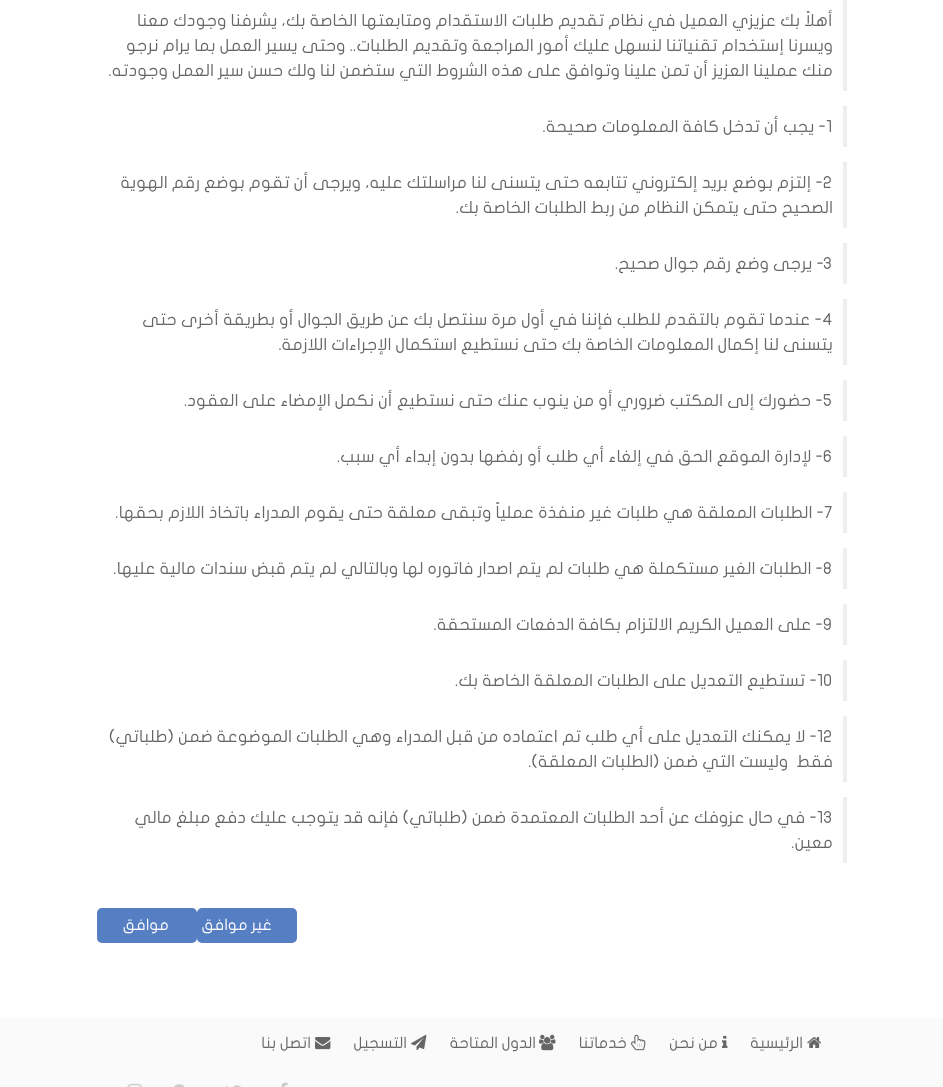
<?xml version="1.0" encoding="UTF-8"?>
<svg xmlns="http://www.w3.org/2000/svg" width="943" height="1087">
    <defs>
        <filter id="blur1" x="-50%" y="-200%" width="200%" height="500%"><feGaussianBlur stdDeviation="0.5"/></filter>
    </defs>
    <rect width="100%" height="100%" fill="#FFFFFF"/>
    <rect x="843" y="0" width="4" height="91" fill="#EEEEEE"/>
    <text font-family="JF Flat" font-size="16.8" direction="rtl" fill="#666666">
        <tspan x="833" y="26">أهلاً بك عزيزي العميل في نظام تقديم طلبات الاستقدام ومتابعتها الخاصة بك، يشرفنا وجودك معنا</tspan>
        <tspan x="833" y="51">ويسرنا إستخدام تقنياتنا لنسهل عليك أمور المراجعة وتقديم الطلبات.. وحتى يسير العمل بما يرام نرجو</tspan>
        <tspan x="833" y="76">منك عملينا العزيز أن تمن علينا وتوافق على هذه الشروط التي ستضمن لنا ولك حسن سير العمل وجودته.</tspan>
    </text>
    <rect x="843" y="106" width="4" height="41" fill="#EEEEEE"/>
    <text x="826" y="132" font-family="JF Flat" font-size="16.8" fill="#666666">1</text>
    <text x="826" y="132" font-family="JF Flat" font-size="16.8" direction="rtl" fill="#666666">- يجب أن تدخل كافة المعلومات صحيحة.</text>
    <rect x="843" y="162" width="4" height="66" fill="#EEEEEE"/>
    <text x="823" y="188" font-family="JF Flat" font-size="16.8" fill="#666666">2</text>
    <text x="823" y="188" font-family="JF Flat" font-size="16.8" direction="rtl" fill="#666666">- إلتزم بوضع بريد إلكتروني تتابعه حتى يتسنى لنا مراسلتك عليه، ويرجى أن تقوم بوضع رقم الهوية</text>
    <text x="833" y="213" font-family="JF Flat" font-size="16.8" direction="rtl" fill="#666666">الصحيح حتى يتمكن النظام من ربط الطلبات الخاصة بك.</text>
    <rect x="843" y="243" width="4" height="41" fill="#EEEEEE"/>
    <text x="823" y="269" font-family="JF Flat" font-size="16.8" fill="#666666">3</text>
    <text x="824" y="269" font-family="JF Flat" font-size="16.8" direction="rtl" fill="#666666">- يرجى وضع رقم جوال صحيح.</text>
    <rect x="843" y="299" width="4" height="66" fill="#EEEEEE"/>
    <text x="822" y="325" font-family="JF Flat" font-size="16.8" fill="#666666">4</text>
    <text x="822" y="325" font-family="JF Flat" font-size="16.8" direction="rtl" fill="#666666">- عندما تقوم بالتقدم للطلب فإننا في أول مرة سنتصل بك عن طريق الجوال أو بطريقة أخرى حتى</text>
    <text x="833" y="350" font-family="JF Flat" font-size="16.8" direction="rtl" fill="#666666">يتسنى لنا إكمال المعلومات الخاصة بك حتى نستطيع استكمال الإجراءات اللازمة.</text>
    <rect x="843" y="380" width="4" height="41" fill="#EEEEEE"/>
    <text x="823" y="406" font-family="JF Flat" font-size="16.8" fill="#666666">5</text>
    <text x="823" y="406" font-family="JF Flat" font-size="16.8" direction="rtl" fill="#666666">- حضورك إلى المكتب ضروري أو من ينوب عنك حتى نستطيع أن نكمل الإمضاء على العقود.</text>
    <rect x="843" y="436" width="4" height="41" fill="#EEEEEE"/>
    <text x="823" y="462" font-family="JF Flat" font-size="16.8" fill="#666666">6</text>
    <text x="823" y="462" font-family="JF Flat" font-size="16.8" direction="rtl" fill="#666666">- لإدارة الموقع الحق في إلغاء أي طلب أو رفضها بدون إبداء أي سبب.</text>
    <rect x="843" y="492" width="4" height="41" fill="#EEEEEE"/>
    <text x="824" y="518" font-family="JF Flat" font-size="16.8" fill="#666666">7</text>
    <text x="824" y="518" font-family="JF Flat" font-size="16.8" direction="rtl" fill="#666666">- الطلبات المعلقة هي طلبات غير منفذة عملياً وتبقى معلقة حتى يقوم المدراء باتخاذ اللازم بحقها.</text>
    <rect x="843" y="548" width="4" height="41" fill="#EEEEEE"/>
    <text x="823" y="574" font-family="JF Flat" font-size="16.8" fill="#666666">8</text>
    <text x="823" y="574" font-family="JF Flat" font-size="16.8" direction="rtl" fill="#666666">- الطلبات الغير مستكملة هي طلبات لم يتم اصدار فاتوره لها وبالتالي لم يتم قبض سندات مالية عليها.</text>
    <rect x="843" y="604" width="4" height="41" fill="#EEEEEE"/>
    <text x="823" y="630" font-family="JF Flat" font-size="16.8" fill="#666666">9</text>
    <text x="823" y="630" font-family="JF Flat" font-size="16.8" direction="rtl" fill="#666666">- على العميل الكريم الالتزام بكافة الدفعات المستحقة.</text>
    <rect x="843" y="660" width="4" height="41" fill="#EEEEEE"/>
    <text x="817" y="686" font-family="JF Flat" font-size="16.8" fill="#666666">10</text>
    <text x="817" y="686" font-family="JF Flat" font-size="16.8" direction="rtl" fill="#666666">- تستطيع التعديل على الطلبات المعلقة الخاصة بك.</text>
    <rect x="843" y="716" width="4" height="66" fill="#EEEEEE"/>
    <text x="817" y="742" font-family="JF Flat" font-size="16.8" fill="#666666">12</text>
    <text x="817" y="742" font-family="JF Flat" font-size="16.8" direction="rtl" fill="#666666">- لا يمكنك التعديل على أي طلب تم اعتماده من قبل المدراء وهي الطلبات الموضوعة ضمن (طلباتي)</text>
    <text x="833" y="767" font-family="JF Flat" font-size="16.8" direction="rtl" fill="#666666" xml:space="preserve">فقط  وليست التي ضمن (الطلبات المعلقة).</text>
    <rect x="843" y="797" width="4" height="66" fill="#EEEEEE"/>
    <text x="817" y="823" font-family="JF Flat" font-size="16.8" fill="#666666">13</text>
    <text x="817" y="823" font-family="JF Flat" font-size="16.8" direction="rtl" fill="#666666">- في حال عزوفك عن أحد الطلبات المعتمدة ضمن (طلباتي) فإنه قد يتوجب عليك دفع مبلغ مالي</text>
    <text x="833" y="848" font-family="JF Flat" font-size="16.8" direction="rtl" fill="#666666">معين.</text>
    <rect x="197" y="908" width="100" height="35" rx="5" fill="#567EC3"/>
    <text x="272" y="930" font-family="JF Flat" font-size="15.5" direction="rtl" fill="#FFFFFF">غير موافق</text>
    <rect x="97" y="908" width="100" height="35" rx="5" fill="#567EC3"/>
    <text x="169" y="930" font-family="JF Flat" font-size="15.5" direction="rtl" fill="#FFFFFF">موافق</text>
    <rect x="0" y="1013" width="943" height="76" fill="#888888" filter="url(#blur1)"/>
    <rect x="0" y="1018" width="943" height="69" fill="#FAFAFA"/>
    <rect x="0" y="1013" width="943" height="5" fill="#FFFFFF"/>
    <image x="807" y="1037" width="14" height="11" href="img_01.png"/>
    <text x="803" y="1048" font-family="JF Flat" font-size="15.5" direction="rtl" fill="#666666">الرئيسية</text>
    <image x="722" y="1035" width="6" height="13" href="img_02.png"/>
    <text x="718" y="1048" font-family="JF Flat" font-size="15.5" direction="rtl" fill="#666666">من نحن</text>
    <image x="631" y="1034" width="15" height="17" href="img_03.png"/>
    <text x="627" y="1048" font-family="JF Flat" font-size="15.5" direction="rtl" fill="#666666">خدماتنا</text>
    <image x="539" y="1034" width="17" height="17" href="img_04.png"/>
    <text x="536" y="1048" font-family="JF Flat" font-size="15.5" direction="rtl" fill="#666666">الدول المتاحة</text>
    <image x="411" y="1034" width="16" height="17" href="img_05.png"/>
    <text x="407" y="1048" font-family="JF Flat" font-size="15.5" direction="rtl" fill="#666666">التسجيل</text>
    <image x="315" y="1037" width="16" height="13" href="img_06.png"/>
    <text x="311" y="1048" font-family="JF Flat" font-size="15.5" direction="rtl" fill="#666666">اتصل بنا</text>
    <image x="281" y="1082" width="7" height="5" href="img_07.png"/>
    <image x="226" y="1085" width="15" height="2" href="img_08.png"/>
    <image x="174" y="1084" width="10" height="3" href="img_09.png"/>
    <image x="127" y="1083" width="15" height="4" href="img_10.png"/>
</svg>
